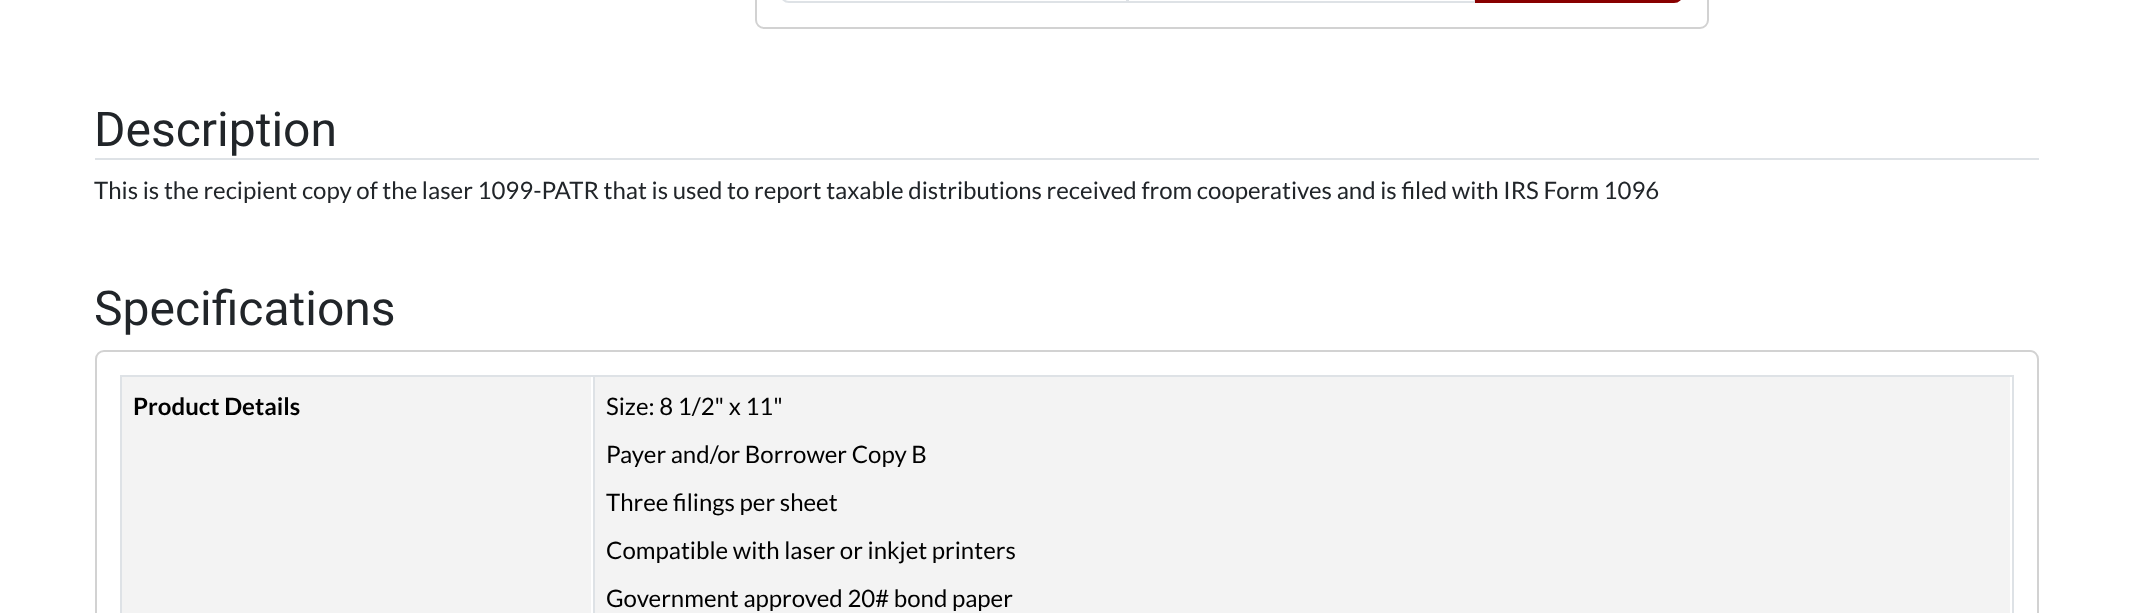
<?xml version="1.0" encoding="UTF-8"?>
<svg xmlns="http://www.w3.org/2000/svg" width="2131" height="613">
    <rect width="100%" height="100%" fill="#FFFFFF"/>
    <rect x="756" y="-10" width="952" height="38" rx="8" fill="none" stroke="#D2D2D2" stroke-width="2"/>
    <path d="M 789 -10 H 1127 V 2 H 789 C 784.5 2 781 -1.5 781 -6 V -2 C 781 -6.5 784.5 -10 789 -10 Z" fill="none" stroke="#DEE2E6" stroke-width="2"/>
    <rect x="1127" y="0" width="1" height="1" fill="#FFFFFF"/>
    <rect x="1128" y="-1" width="347" height="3" fill="none" stroke="#DEE2E6" stroke-width="2"/>
    <path d="M 1476 -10 H 1674 C 1678.5 -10 1682 -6.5 1682 -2 V -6 C 1682 -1.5 1678.5 2 1674 2 H 1476 Z" fill="#880000" stroke="#880000" stroke-width="2"/>
    <rect x="95" y="158" width="1944" height="2" fill="#DEE2E6"/>
    <text x="94" y="146" font-family="Roboto" font-size="48" fill="#212529">Description</text>
    <text x="94" y="199" font-family="Lato" font-size="24" fill="#212529">This is the recipient copy of the laser 1099-PATR that is used to report taxable distributions received from cooperatives and is filed with IRS Form 1096</text>
    <text x="94" y="325" font-family="Roboto" font-size="48" fill="#212529">Specifications</text>
    <rect x="96" y="351" width="1942" height="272" rx="8" fill="none" stroke="#D2D2D2" stroke-width="2"/>
    <rect x="120" y="375" width="1893" height="2" fill="#DEE2E6"/>
    <rect x="122" y="377" width="469" height="236" fill="#F3F3F3"/>
    <rect x="120" y="375" width="2" height="238" fill="#DEE2E6"/>
    <text x="133" y="415" font-family="Lato" font-size="24" font-weight="700" fill="#000000">Product Details</text>
    <rect x="595" y="377" width="1415" height="236" fill="#F3F3F3"/>
    <rect x="2012" y="375" width="2" height="238" fill="#DEE2E6"/>
    <rect x="593" y="375" width="2" height="238" fill="#DEE2E6"/>
    <text x="606" y="415" font-family="Lato" font-size="24" fill="#000000">Size: 8 1/2" x 11"</text>
    <text x="606" y="463" font-family="Lato" font-size="24" fill="#000000">Payer and/or Borrower Copy B</text>
    <text x="606" y="511" font-family="Lato" font-size="24" fill="#000000">Three filings per sheet</text>
    <text x="606" y="559" font-family="Lato" font-size="24" fill="#000000">Compatible with laser or inkjet printers</text>
    <text x="606" y="607" font-family="Lato" font-size="24" fill="#000000">Government approved 20# bond paper</text>
</svg>
